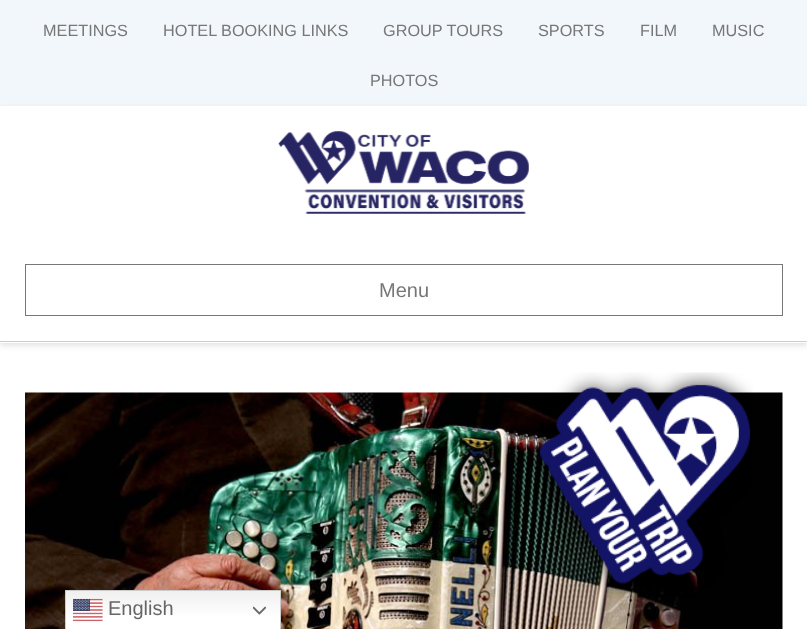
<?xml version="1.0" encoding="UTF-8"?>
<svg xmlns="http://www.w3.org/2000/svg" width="807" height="629">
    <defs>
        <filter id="blur1" x="-50%" y="-200%" width="200%" height="500%"><feGaussianBlur stdDeviation="3"/></filter>
        <linearGradient id="g1" gradientUnits="userSpaceOnUse" x1="173" y1="590" x2="173" y2="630"><stop offset="0" stop-color="#EFEFEF"/><stop offset="0.7" stop-color="#FFFFFF"/></linearGradient>
    </defs>
    <rect width="100%" height="100%" fill="#F2F7FC"/>
    <text x="43" y="36" font-family="Liberation Sans" font-size="16.25" fill="#777777">MEETINGS</text>
    <text x="163" y="36" font-family="Liberation Sans" font-size="16.25" fill="#777777">HOTEL BOOKING LINKS</text>
    <text x="383" y="36" font-family="Liberation Sans" font-size="16.25" fill="#777777">GROUP TOURS</text>
    <text x="538" y="36" font-family="Liberation Sans" font-size="16.25" fill="#777777">SPORTS</text>
    <text x="640" y="36" font-family="Liberation Sans" font-size="16.25" fill="#777777">FILM</text>
    <text x="712" y="36" font-family="Liberation Sans" font-size="16.25" fill="#777777">MUSIC</text>
    <text x="370" y="86" font-family="Liberation Sans" font-size="16.25" fill="#777777">PHOTOS</text>
    <rect x="0" y="343" width="807" height="286" fill="#FFFFFF"/>
    <rect x="0" y="109" width="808" height="236" fill="#000000" fill-opacity="0.13" filter="url(#blur1)"/>
    <rect x="0" y="106" width="807" height="237" fill="#FFFFFF"/>
    <rect x="0" y="341" width="807" height="1" fill="#CCCCCC"/>
    <image x="278" y="131" width="251" height="83" href="img_01.png"/>
    <rect x="25.5" y="264.5" width="757" height="51" fill="none" stroke="#777777"/>
    <text x="379" y="297" font-family="Liberation Sans" font-size="20" fill="#777777">Menu</text>
    <image x="25" y="392" width="758" height="237" href="img_02.png"/>
    <image x="526" y="372" width="227" height="226" href="img_03.png"/>
    <rect x="66" y="591" width="214" height="38" fill="url(#g1)"/>
    <rect x="65.5" y="590.5" width="215" height="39" fill="none" stroke="#CCCCCC"/>
    <image x="73" y="598" width="30" height="24" href="img_04.png"/>
    <text x="108" y="615" font-family="Liberation Sans" font-size="20" fill="#666666">English</text>
    <image x="253" y="606" width="13" height="9" href="img_05.png"/>
</svg>
